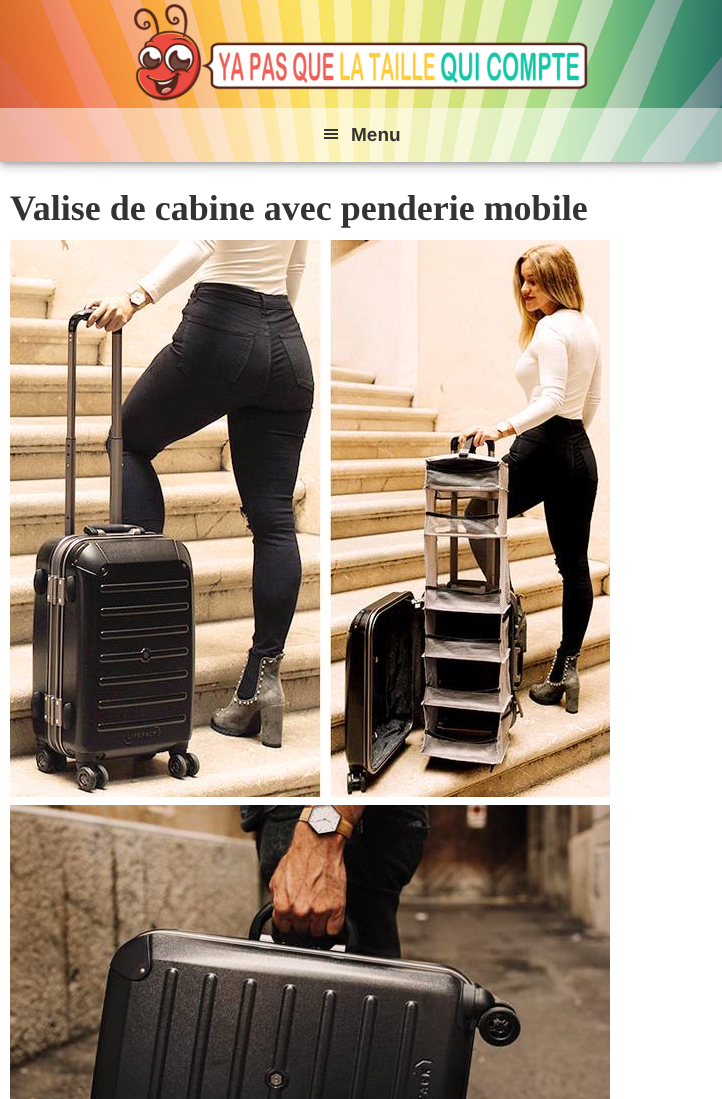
<?xml version="1.0" encoding="UTF-8"?>
<svg xmlns="http://www.w3.org/2000/svg" width="722" height="1099">
    <defs>
        <filter id="blur1" x="-50%" y="-200%" width="200%" height="500%"><feGaussianBlur stdDeviation="6"/></filter>
    </defs>
    <rect width="100%" height="100%" fill="#FFFFFF"/>
    <rect x="0" y="0" width="722" height="162" fill="#333333" fill-opacity="0.8" filter="url(#blur1)"/>
    <image x="0" y="0" width="722" height="162" href="img_01.png"/>
    <image x="134" y="4" width="454" height="97" href="img_02.png"/>
    <rect x="0" y="108" width="722" height="54" fill="#FFFFFF" fill-opacity="0.5"/>
    <image x="324" y="129" width="14" height="10" href="img_03.png"/>
    <text x="351" y="141" font-family="Liberation Sans" font-size="19" font-weight="700" fill="#333333">Menu</text>
    <text x="10" y="220" font-family="Liberation Serif" font-size="36" font-weight="700" fill="#333333">Valise de cabine avec penderie mobile</text>
    <image x="10" y="240" width="600" height="557" href="img_04.png"/>
    <image x="10" y="805" width="600" height="294" href="img_05.png"/>
</svg>
